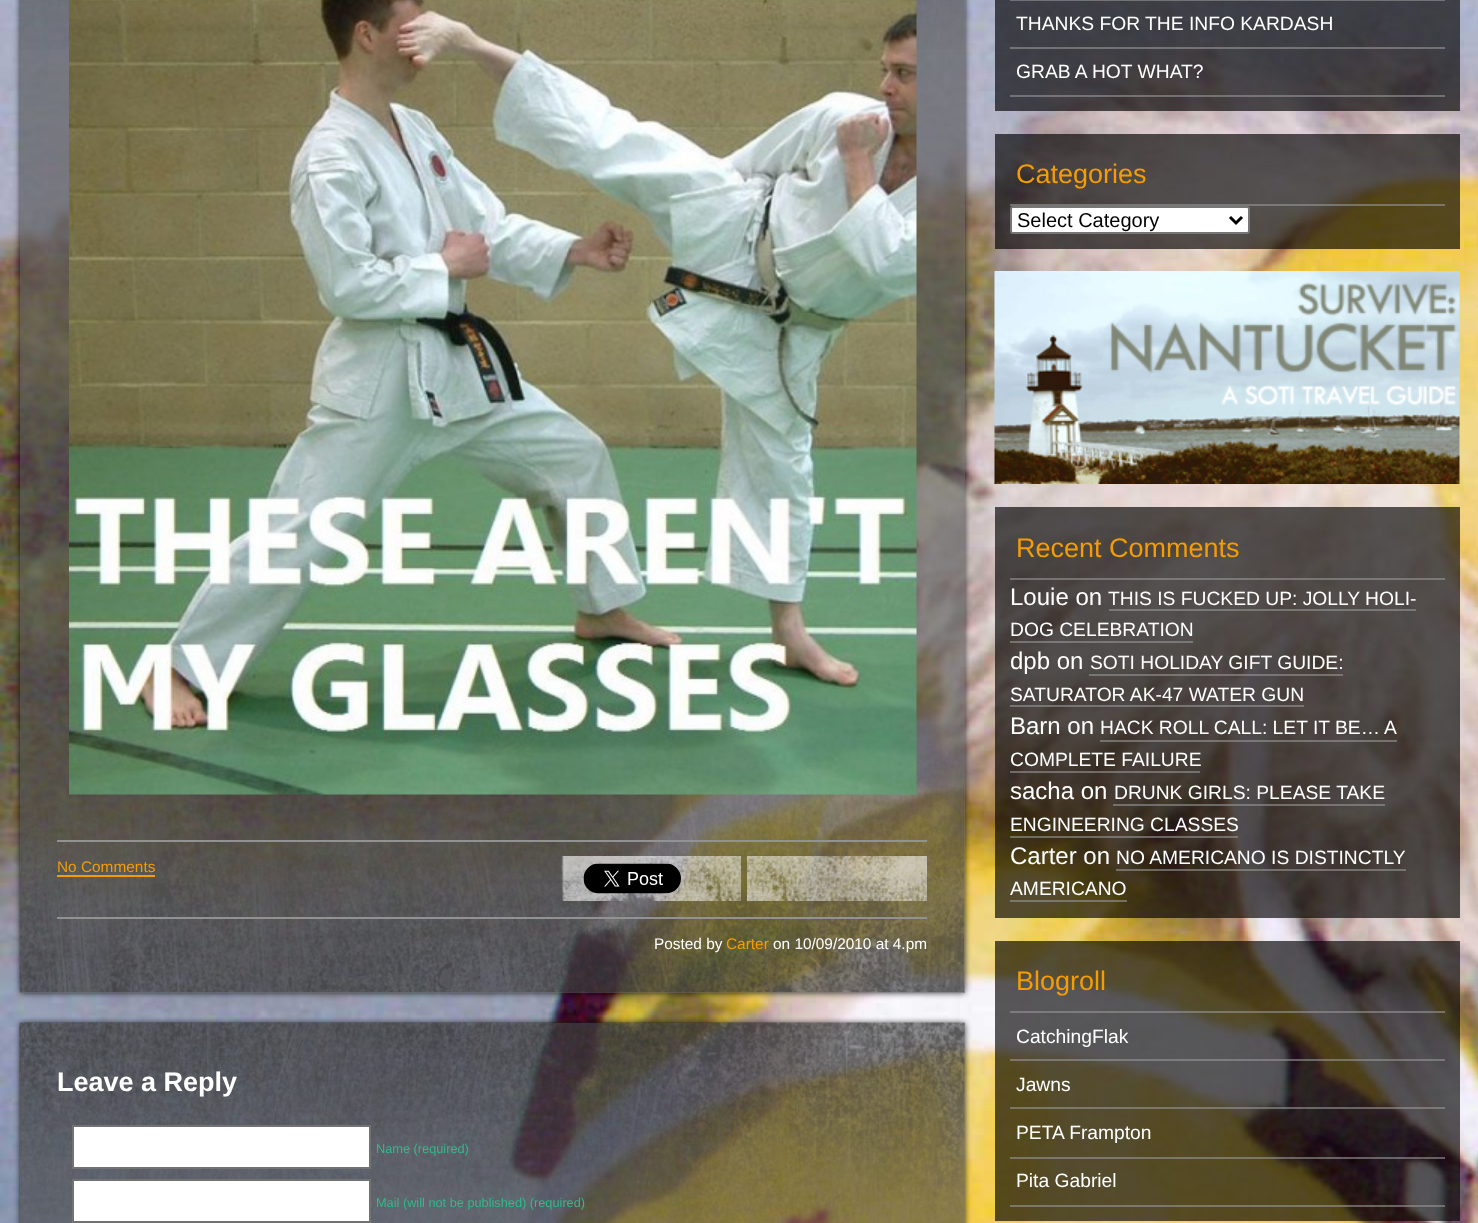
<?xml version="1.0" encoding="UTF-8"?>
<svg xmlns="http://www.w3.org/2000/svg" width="1478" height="1223">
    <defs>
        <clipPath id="clip1"><path d="M 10 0 H 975 V 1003 H 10 Z M 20 -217 H 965 V 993 H 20 Z" clip-rule="evenodd"/></clipPath>
        <filter id="blur1" x="-50%" y="-200%" width="200%" height="500%"><feGaussianBlur stdDeviation="3"/></filter>
        <clipPath id="clip2"><path d="M 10 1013 H 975 V 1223 H 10 Z M 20 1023 H 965 V 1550 H 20 Z" clip-rule="evenodd"/></clipPath>
    </defs>
    <rect width="100%" height="100%" fill="#FFFFFF"/>
    <image x="0" y="0" width="1478" height="1223" href="img_01.png"/>
    <g clip-path="url(#clip1)">
        <rect x="20" y="-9" width="945" height="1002" fill="#000000" fill-opacity="0.75" filter="url(#blur1)"/>
    </g>
    <rect x="20" y="0" width="945" height="993" fill="#525252" fill-opacity="0.6"/>
    <image x="19" y="0" width="945" height="50" href="img_02.png"/>
    <image x="19" y="724" width="946" height="269" href="img_03.png"/>
    <image x="69" y="0" width="848" height="795" href="img_04.png"/>
    <rect x="57" y="840" width="870" height="2" fill="#929292"/>
    <text x="57" y="872" font-family="Liberation Sans" font-size="15.4" fill="#F49C04">No Comments</text>
    <rect x="57" y="875" width="98" height="2" fill="#F49C04"/>
    <image x="561" y="856" width="180" height="45" href="img_05.png"/>
    <image x="583" y="863" width="98" height="31" href="img_06.png"/>
    <image x="747" y="856" width="180" height="45" href="img_07.png"/>
    <rect x="57" y="917" width="870" height="2" fill="#929292"/>
    <text x="654" y="949" font-family="Liberation Sans" font-size="15.4" fill="#FFFFFF">Posted by</text>
    <text x="726" y="949" font-family="Liberation Sans" font-size="15.4" fill="#F49C04">Carter</text>
    <text x="773" y="949" font-family="Liberation Sans" font-size="15.4" fill="#FFFFFF">on 10/09/2010 at 4.pm</text>
    <g clip-path="url(#clip2)">
        <rect x="20" y="1023" width="945" height="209" fill="#000000" fill-opacity="0.75" filter="url(#blur1)"/>
    </g>
    <rect x="20" y="1023" width="945" height="200" fill="#525252" fill-opacity="0.6"/>
    <image x="19" y="1022" width="946" height="201" href="img_08.png"/>
    <text x="57" y="1091" font-family="Liberation Sans" font-size="27" font-weight="700" fill="#FFFFFF">Leave a Reply</text>
    <rect x="73" y="1126" width="297" height="42" fill="#FFFFFF" stroke="#727272" stroke-width="2"/>
    <text x="376" y="1153" font-family="Liberation Sans" font-size="12.75" fill="#2FBB8A">Name (required)</text>
    <rect x="73" y="1180" width="297" height="42" fill="#FFFFFF" stroke="#727272" stroke-width="2"/>
    <text x="376" y="1207" font-family="Liberation Sans" font-size="12.75" fill="#2FBB8A">Mail (will not be published) (required)</text>
    <rect x="995" y="0" width="465" height="111" fill="#000000" fill-opacity="0.65"/>
    <rect x="1010" y="0" width="435" height="1" fill="#969696" fill-opacity="0.6"/>
    <rect x="1010" y="47" width="435" height="2" fill="#969696" fill-opacity="0.6"/>
    <text x="1016" y="30" font-family="Liberation Sans" font-size="19.25" fill="#FFFFFF">THANKS FOR THE INFO KARDASH</text>
    <rect x="1010" y="95" width="435" height="2" fill="#969696" fill-opacity="0.6"/>
    <text x="1016" y="78" font-family="Liberation Sans" font-size="19.25" fill="#FFFFFF">GRAB A HOT WHAT?</text>
    <rect x="995" y="134" width="465" height="115" fill="#000000" fill-opacity="0.65"/>
    <rect x="1010" y="204" width="435" height="2" fill="#969696" fill-opacity="0.6"/>
    <text x="1016" y="183" font-family="Liberation Sans" font-size="27" fill="#F49C04">Categories</text>
    <rect x="1011" y="207" width="238" height="26" rx="2" fill="#FFFFFF" stroke="#767676" stroke-width="2"/>
    <path d="M 1230 217 L 1236 223 L 1242 217" fill="none" stroke="#000000" stroke-width="3"/>
    <text x="1017" y="227" font-family="Liberation Sans" font-size="20" fill="#000000">Select Category</text>
    <image x="994" y="271" width="466" height="213" href="img_09.png"/>
    <rect x="995" y="507" width="465" height="411" fill="#000000" fill-opacity="0.65"/>
    <rect x="1010" y="578" width="435" height="2" fill="#969696" fill-opacity="0.6"/>
    <text x="1016" y="557" font-family="Liberation Sans" font-size="27" fill="#F49C04">Recent Comments</text>
    <text x="1010" y="605" font-family="Liberation Sans" font-size="24" fill="#FFFFFF">Louie on</text>
    <text x="1108" y="605" font-family="Liberation Sans" font-size="19.25" fill="#FFFFFF">THIS IS FUCKED UP: JOLLY HOLI-</text>
    <rect x="1109" y="609" width="307" height="2" fill="#969696" fill-opacity="0.6"/>
    <text x="1010" y="636" font-family="Liberation Sans" font-size="19.25" fill="#FFFFFF">DOG CELEBRATION</text>
    <rect x="1010" y="641" width="183" height="2" fill="#969696" fill-opacity="0.6"/>
    <text x="1010" y="669" font-family="Liberation Sans" font-size="24" fill="#FFFFFF">dpb on</text>
    <text x="1090" y="669" font-family="Liberation Sans" font-size="19.25" fill="#FFFFFF">SOTI HOLIDAY GIFT GUIDE:</text>
    <rect x="1089" y="674" width="254" height="2" fill="#969696" fill-opacity="0.6"/>
    <text x="1010" y="701" font-family="Liberation Sans" font-size="19.25" fill="#FFFFFF">SATURATOR AK-47 WATER GUN</text>
    <rect x="1010" y="705" width="294" height="2" fill="#969696" fill-opacity="0.6"/>
    <text x="1010" y="734" font-family="Liberation Sans" font-size="24" fill="#FFFFFF">Barn on</text>
    <text x="1100" y="734" font-family="Liberation Sans" font-size="19.25" fill="#FFFFFF">HACK ROLL CALL: LET IT BE…</text>
    <rect x="1100" y="740" width="297" height="2" fill="#969696" fill-opacity="0.6"/>
    <text x="1384" y="734" font-family="Liberation Sans" font-size="19.25" fill="#FFFFFF">A</text>
    <text x="1010" y="766" font-family="Liberation Sans" font-size="19.25" fill="#FFFFFF">COMPLETE FAILURE</text>
    <rect x="1010" y="771" width="190" height="2" fill="#969696" fill-opacity="0.6"/>
    <text x="1010" y="799" font-family="Liberation Sans" font-size="24" fill="#FFFFFF">sacha on</text>
    <text x="1114" y="799" font-family="Liberation Sans" font-size="19.25" fill="#FFFFFF">DRUNK GIRLS: PLEASE TAKE</text>
    <rect x="1113" y="804" width="272" height="2" fill="#969696" fill-opacity="0.6"/>
    <text x="1010" y="831" font-family="Liberation Sans" font-size="19.25" fill="#FFFFFF">ENGINEERING CLASSES</text>
    <rect x="1010" y="836" width="228" height="2" fill="#969696" fill-opacity="0.6"/>
    <text x="1010" y="864" font-family="Liberation Sans" font-size="24" fill="#FFFFFF">Carter on</text>
    <text x="1116" y="864" font-family="Liberation Sans" font-size="19.25" fill="#FFFFFF">NO AMERICANO IS DISTINCTLY</text>
    <rect x="1116" y="869" width="290" height="2" fill="#969696" fill-opacity="0.6"/>
    <text x="1010" y="895" font-family="Liberation Sans" font-size="19.25" fill="#FFFFFF">AMERICANO</text>
    <rect x="1010" y="900" width="117" height="2" fill="#969696" fill-opacity="0.6"/>
    <rect x="995" y="941" width="465" height="280" fill="#000000" fill-opacity="0.65"/>
    <rect x="1010" y="1011" width="435" height="2" fill="#969696" fill-opacity="0.6"/>
    <text x="1016" y="990" font-family="Liberation Sans" font-size="27" fill="#F49C04">Blogroll</text>
    <rect x="1010" y="1059" width="435" height="2" fill="#969696" fill-opacity="0.6"/>
    <text x="1016" y="1043" font-family="Liberation Sans" font-size="19.25" fill="#FFFFFF">CatchingFlak</text>
    <rect x="1010" y="1107" width="435" height="2" fill="#969696" fill-opacity="0.6"/>
    <text x="1016" y="1091" font-family="Liberation Sans" font-size="19.25" fill="#FFFFFF">Jawns</text>
    <rect x="1010" y="1157" width="435" height="2" fill="#969696" fill-opacity="0.6"/>
    <text x="1016" y="1139" font-family="Liberation Sans" font-size="19.25" fill="#FFFFFF">PETA Frampton</text>
    <rect x="1010" y="1205" width="435" height="2" fill="#969696" fill-opacity="0.6"/>
    <text x="1016" y="1187" font-family="Liberation Sans" font-size="19.25" fill="#FFFFFF">Pita Gabriel</text>
</svg>
